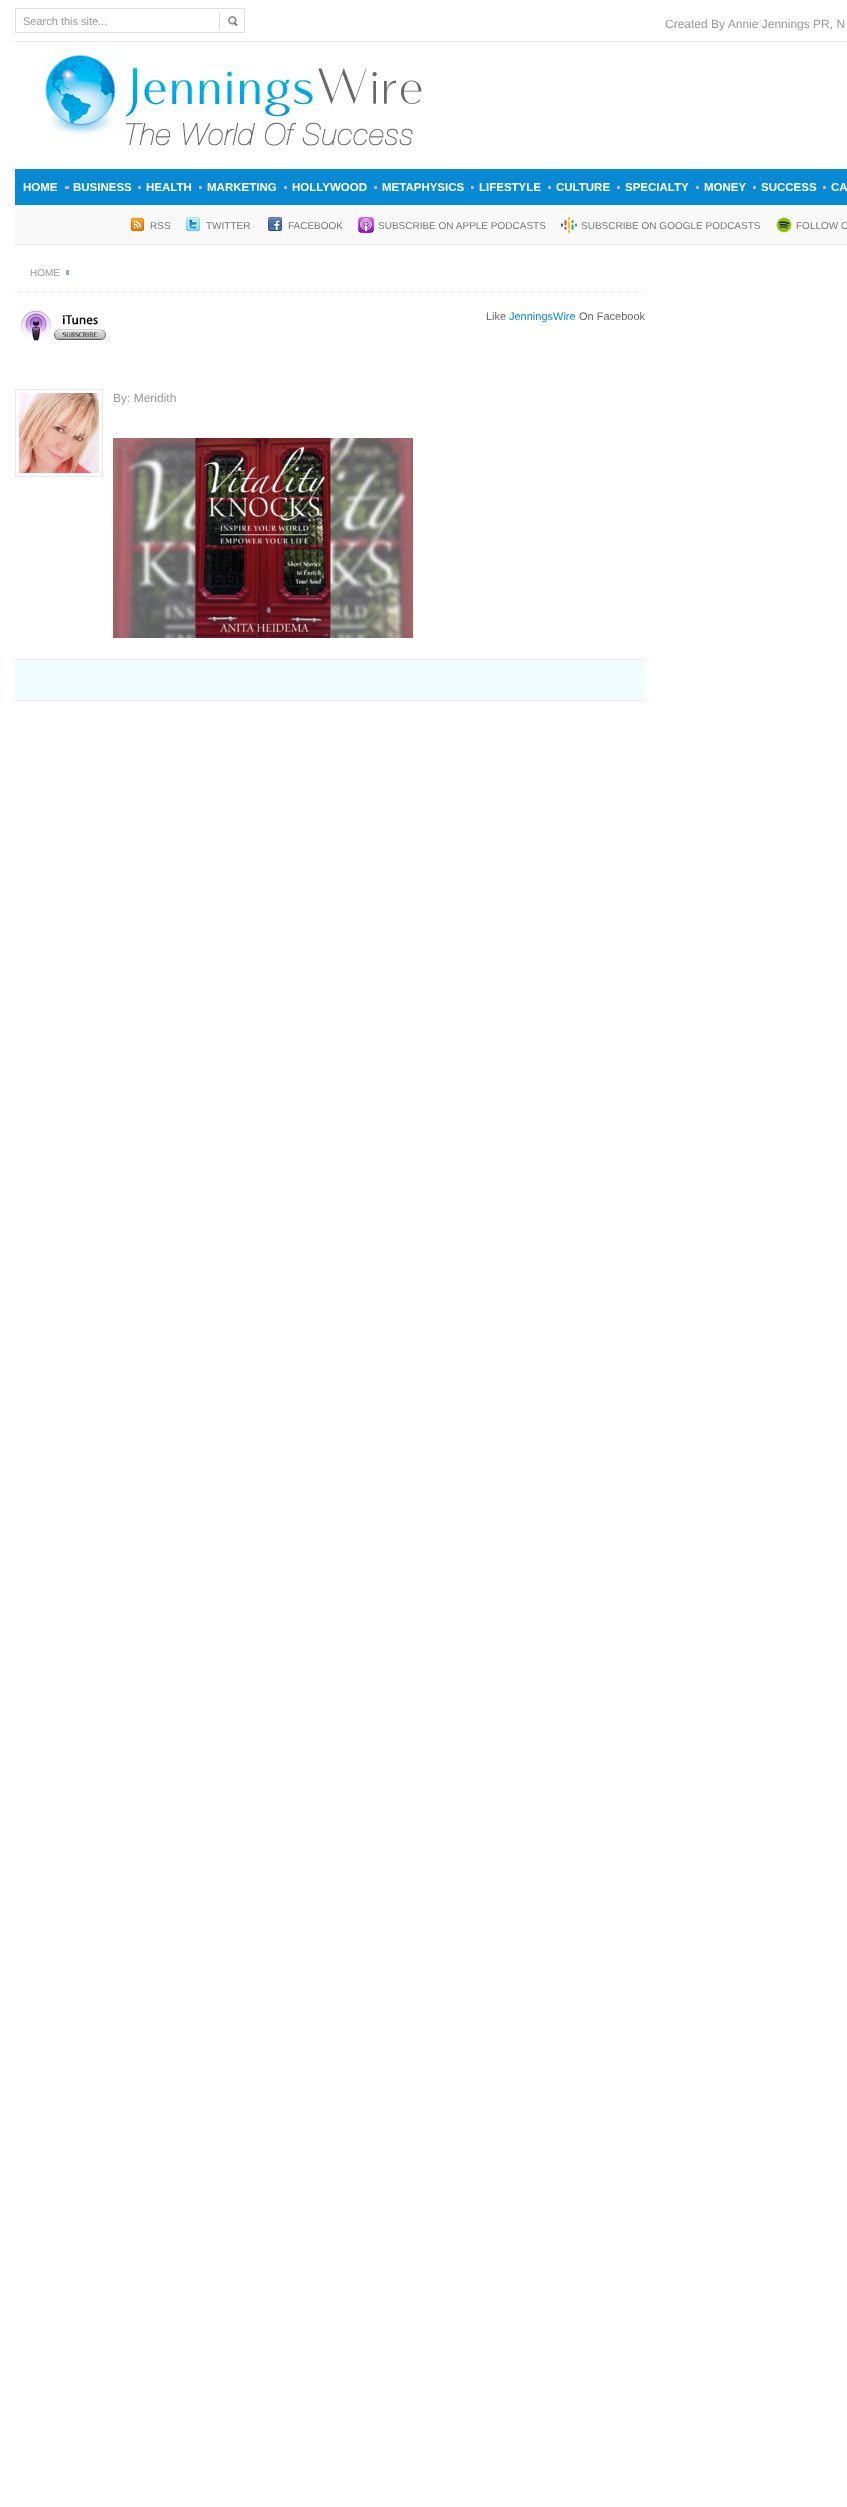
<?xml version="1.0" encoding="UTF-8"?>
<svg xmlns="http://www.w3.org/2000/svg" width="847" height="2507">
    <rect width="100%" height="100%" fill="#FFFFFF"/>
    <rect x="15" y="41" width="832" height="1" fill="#E9E9E9"/>
    <rect x="15.5" y="8.5" width="229" height="24" fill="none" stroke="#E0E0E0"/>
    <text x="23" y="25" font-family="Liberation Sans" font-size="11" fill="#999999">Search this site...</text>
    <image x="219" y="12" width="19" height="18" href="img_01.png"/>
    <text x="665" y="28" font-family="Liberation Sans" font-size="12" fill="#999999">Created By Annie Jennings PR, N</text>
    <image x="45" y="54" width="377" height="92" href="img_02.png"/>
    <rect x="15" y="169" width="832" height="36" fill="#0789D4"/>
    <text x="23" y="191" font-family="Liberation Sans" font-size="11.5" font-weight="700" fill="#FFFFFF">HOME</text>
    <rect x="65" y="186" width="4" height="3" fill="#BBBBBB"/>
    <text x="73" y="191" font-family="Liberation Sans" font-size="11.5" font-weight="700" fill="#FFFFFF">BUSINESS</text>
    <rect x="138" y="186" width="3" height="3" fill="#BBBBBB"/>
    <text x="146" y="191" font-family="Liberation Sans" font-size="11.5" font-weight="700" fill="#FFFFFF">HEALTH</text>
    <rect x="199" y="186" width="3" height="3" fill="#BBBBBB"/>
    <text x="207" y="191" font-family="Liberation Sans" font-size="11.5" font-weight="700" fill="#FFFFFF">MARKETING</text>
    <rect x="284" y="186" width="3" height="3" fill="#BBBBBB"/>
    <text x="292" y="191" font-family="Liberation Sans" font-size="11.5" font-weight="700" fill="#FFFFFF">HOLLYWOOD</text>
    <rect x="374" y="186" width="3" height="3" fill="#BBBBBB"/>
    <text x="382" y="191" font-family="Liberation Sans" font-size="11.5" font-weight="700" fill="#FFFFFF">METAPHYSICS</text>
    <rect x="471" y="186" width="3" height="3" fill="#BBBBBB"/>
    <text x="479" y="191" font-family="Liberation Sans" font-size="11.5" font-weight="700" fill="#FFFFFF">LIFESTYLE</text>
    <rect x="548" y="186" width="3" height="3" fill="#BBBBBB"/>
    <text x="556" y="191" font-family="Liberation Sans" font-size="11.5" font-weight="700" fill="#FFFFFF">CULTURE</text>
    <rect x="617" y="186" width="3" height="3" fill="#BBBBBB"/>
    <text x="625" y="191" font-family="Liberation Sans" font-size="11.5" font-weight="700" fill="#FFFFFF">SPECIALTY</text>
    <rect x="696" y="186" width="3" height="3" fill="#BBBBBB"/>
    <text x="704" y="191" font-family="Liberation Sans" font-size="11.5" font-weight="700" fill="#FFFFFF">MONEY</text>
    <rect x="753" y="186" width="3" height="3" fill="#BBBBBB"/>
    <text x="761" y="191" font-family="Liberation Sans" font-size="11.5" font-weight="700" fill="#FFFFFF">SUCCESS</text>
    <rect x="823" y="186" width="3" height="3" fill="#BBBBBB"/>
    <text x="831" y="191" font-family="Liberation Sans" font-size="11.5" font-weight="700" fill="#FFFFFF">CA</text>
    <rect x="15" y="205" width="832" height="39" fill="#F9F9F9"/>
    <rect x="15" y="244" width="832" height="1" fill="#E9E9E9"/>
    <image x="130" y="217" width="15" height="15" href="img_03.png"/>
    <text x="150" y="229" font-family="Liberation Sans" font-size="10" fill="#777777">RSS</text>
    <image x="186" y="217" width="14" height="14" href="img_04.png"/>
    <text x="206" y="229" font-family="Liberation Sans" font-size="10" fill="#777777">TWITTER</text>
    <image x="268" y="217" width="14" height="14" href="img_05.png"/>
    <text x="288" y="229" font-family="Liberation Sans" font-size="10" fill="#777777">FACEBOOK</text>
    <image x="358" y="217" width="16" height="16" href="img_06.png"/>
    <text x="378" y="229" font-family="Liberation Sans" font-size="10" fill="#777777">SUBSCRIBE ON APPLE PODCASTS</text>
    <image x="561" y="217" width="16" height="16" href="img_07.png"/>
    <text x="581" y="229" font-family="Liberation Sans" font-size="10" fill="#777777">SUBSCRIBE ON GOOGLE PODCASTS</text>
    <image x="776" y="217" width="16" height="16" href="img_08.png"/>
    <text x="796" y="229" font-family="Liberation Sans" font-size="10" fill="#777777">FOLLOW O</text>
    <path d="M 15 291.5 H 645" fill="none" stroke="#E9E9E9" stroke-dasharray="1 1"/>
    <text x="30" y="276" font-family="Liberation Sans" font-size="10" fill="#999999">HOME</text>
    <rect x="66" y="270" width="3" height="5" fill="#9AABBC"/>
    <image x="20" y="310" width="86" height="31" href="img_09.png"/>
    <text x="486" y="320" font-family="Liberation Sans" font-size="11" fill="#666666">Like</text>
    <text x="509" y="320" font-family="Liberation Sans" font-size="11" fill="#0789D4">JenningsWire</text>
    <text x="579" y="320" font-family="Liberation Sans" font-size="11" fill="#666666">On Facebook</text>
    <rect x="15.5" y="389.5" width="87" height="87" fill="none" stroke="#E9E9E9"/>
    <image x="19" y="393" width="80" height="80" href="img_10.png"/>
    <text x="113" y="402" font-family="Liberation Sans" font-size="12" fill="#999999">By: Meridith</text>
    <image x="113" y="438" width="300" height="200" href="img_11.png"/>
    <rect x="15" y="660" width="630" height="40" fill="#F0FCFD"/>
    <rect x="15" y="659" width="630" height="1" fill="#E9E9E9"/>
    <rect x="15" y="700" width="630" height="1" fill="#E9E9E9"/>
</svg>
